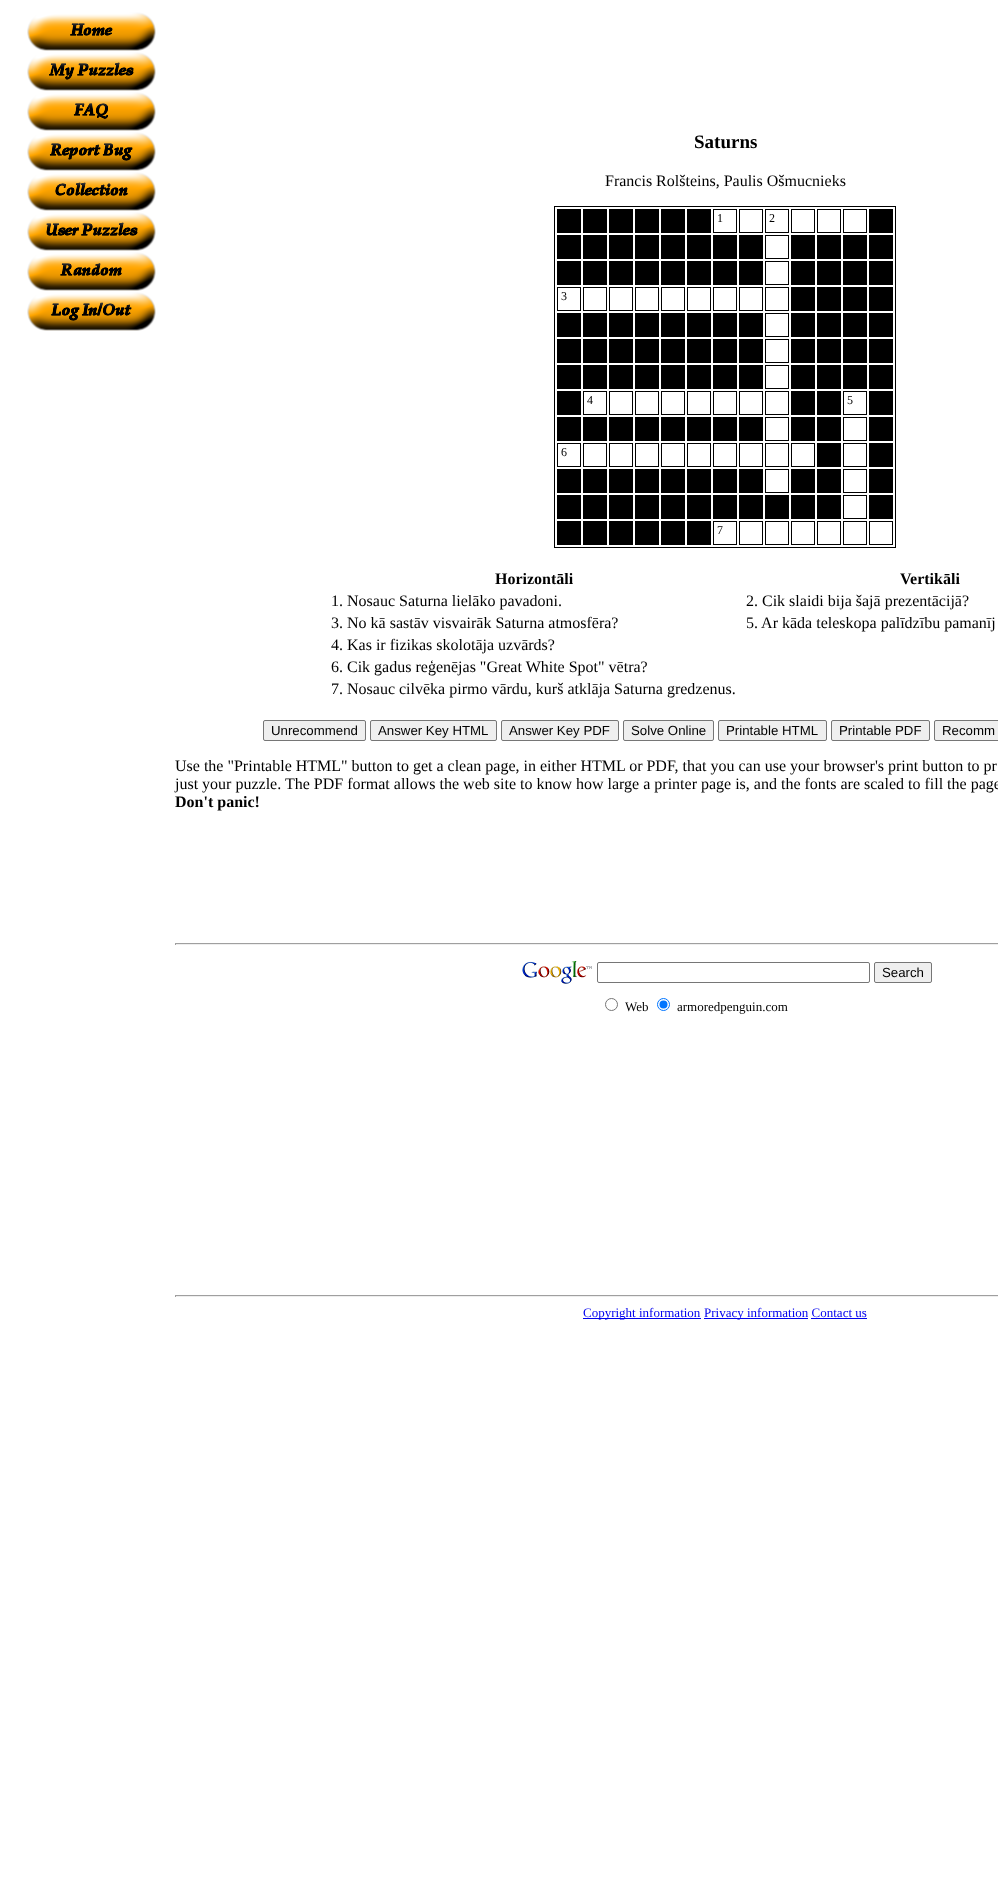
<?xml version="1.0" encoding="UTF-8"?>
<svg xmlns="http://www.w3.org/2000/svg" width="998" height="1881">
    <rect width="100%" height="100%" fill="#FFFFFF"/>
    <image x="27" y="12" width="129" height="39" href="img_01.png"/>
    <image x="27" y="52" width="129" height="39" href="img_02.png"/>
    <image x="27" y="92" width="129" height="39" href="img_03.png"/>
    <image x="27" y="132" width="129" height="39" href="img_04.png"/>
    <image x="27" y="172" width="129" height="39" href="img_05.png"/>
    <image x="27" y="212" width="129" height="39" href="img_06.png"/>
    <image x="27" y="252" width="129" height="39" href="img_07.png"/>
    <image x="27" y="292" width="129" height="39" href="img_08.png"/>
    <text x="694" y="148" font-family="Liberation Serif" font-size="19" font-weight="700" fill="#000000">Saturns</text>
    <text x="605" y="186" font-family="Liberation Serif" font-size="16" fill="#000000">Francis Rolšteins, Paulis Ošmucnieks</text>
    <rect x="554.5" y="206.5" width="341" height="341" fill="none" stroke="#000000"/>
    <rect x="557" y="209" width="24" height="24" fill="#000000"/>
    <rect x="583" y="209" width="24" height="24" fill="#000000"/>
    <rect x="609" y="209" width="24" height="24" fill="#000000"/>
    <rect x="635" y="209" width="24" height="24" fill="#000000"/>
    <rect x="661" y="209" width="24" height="24" fill="#000000"/>
    <rect x="687" y="209" width="24" height="24" fill="#000000"/>
    <rect x="713.5" y="209.5" width="23" height="23" fill="none" stroke="#000000"/>
    <text x="717" y="222" font-family="Liberation Serif" font-size="12" fill="#000000">1</text>
    <rect x="739.5" y="209.5" width="23" height="23" fill="none" stroke="#000000"/>
    <rect x="765.5" y="209.5" width="23" height="23" fill="none" stroke="#000000"/>
    <text x="769" y="222" font-family="Liberation Serif" font-size="12" fill="#000000">2</text>
    <rect x="791.5" y="209.5" width="23" height="23" fill="none" stroke="#000000"/>
    <rect x="817.5" y="209.5" width="23" height="23" fill="none" stroke="#000000"/>
    <rect x="843.5" y="209.5" width="23" height="23" fill="none" stroke="#000000"/>
    <rect x="869" y="209" width="24" height="24" fill="#000000"/>
    <rect x="557" y="235" width="24" height="24" fill="#000000"/>
    <rect x="583" y="235" width="24" height="24" fill="#000000"/>
    <rect x="609" y="235" width="24" height="24" fill="#000000"/>
    <rect x="635" y="235" width="24" height="24" fill="#000000"/>
    <rect x="661" y="235" width="24" height="24" fill="#000000"/>
    <rect x="687" y="235" width="24" height="24" fill="#000000"/>
    <rect x="713" y="235" width="24" height="24" fill="#000000"/>
    <rect x="739" y="235" width="24" height="24" fill="#000000"/>
    <rect x="765.5" y="235.5" width="23" height="23" fill="none" stroke="#000000"/>
    <rect x="791" y="235" width="24" height="24" fill="#000000"/>
    <rect x="817" y="235" width="24" height="24" fill="#000000"/>
    <rect x="843" y="235" width="24" height="24" fill="#000000"/>
    <rect x="869" y="235" width="24" height="24" fill="#000000"/>
    <rect x="557" y="261" width="24" height="24" fill="#000000"/>
    <rect x="583" y="261" width="24" height="24" fill="#000000"/>
    <rect x="609" y="261" width="24" height="24" fill="#000000"/>
    <rect x="635" y="261" width="24" height="24" fill="#000000"/>
    <rect x="661" y="261" width="24" height="24" fill="#000000"/>
    <rect x="687" y="261" width="24" height="24" fill="#000000"/>
    <rect x="713" y="261" width="24" height="24" fill="#000000"/>
    <rect x="739" y="261" width="24" height="24" fill="#000000"/>
    <rect x="765.5" y="261.5" width="23" height="23" fill="none" stroke="#000000"/>
    <rect x="791" y="261" width="24" height="24" fill="#000000"/>
    <rect x="817" y="261" width="24" height="24" fill="#000000"/>
    <rect x="843" y="261" width="24" height="24" fill="#000000"/>
    <rect x="869" y="261" width="24" height="24" fill="#000000"/>
    <rect x="557.5" y="287.5" width="23" height="23" fill="none" stroke="#000000"/>
    <text x="561" y="300" font-family="Liberation Serif" font-size="12" fill="#000000">3</text>
    <rect x="583.5" y="287.5" width="23" height="23" fill="none" stroke="#000000"/>
    <rect x="609.5" y="287.5" width="23" height="23" fill="none" stroke="#000000"/>
    <rect x="635.5" y="287.5" width="23" height="23" fill="none" stroke="#000000"/>
    <rect x="661.5" y="287.5" width="23" height="23" fill="none" stroke="#000000"/>
    <rect x="687.5" y="287.5" width="23" height="23" fill="none" stroke="#000000"/>
    <rect x="713.5" y="287.5" width="23" height="23" fill="none" stroke="#000000"/>
    <rect x="739.5" y="287.5" width="23" height="23" fill="none" stroke="#000000"/>
    <rect x="765.5" y="287.5" width="23" height="23" fill="none" stroke="#000000"/>
    <rect x="791" y="287" width="24" height="24" fill="#000000"/>
    <rect x="817" y="287" width="24" height="24" fill="#000000"/>
    <rect x="843" y="287" width="24" height="24" fill="#000000"/>
    <rect x="869" y="287" width="24" height="24" fill="#000000"/>
    <rect x="557" y="313" width="24" height="24" fill="#000000"/>
    <rect x="583" y="313" width="24" height="24" fill="#000000"/>
    <rect x="609" y="313" width="24" height="24" fill="#000000"/>
    <rect x="635" y="313" width="24" height="24" fill="#000000"/>
    <rect x="661" y="313" width="24" height="24" fill="#000000"/>
    <rect x="687" y="313" width="24" height="24" fill="#000000"/>
    <rect x="713" y="313" width="24" height="24" fill="#000000"/>
    <rect x="739" y="313" width="24" height="24" fill="#000000"/>
    <rect x="765.5" y="313.5" width="23" height="23" fill="none" stroke="#000000"/>
    <rect x="791" y="313" width="24" height="24" fill="#000000"/>
    <rect x="817" y="313" width="24" height="24" fill="#000000"/>
    <rect x="843" y="313" width="24" height="24" fill="#000000"/>
    <rect x="869" y="313" width="24" height="24" fill="#000000"/>
    <rect x="557" y="339" width="24" height="24" fill="#000000"/>
    <rect x="583" y="339" width="24" height="24" fill="#000000"/>
    <rect x="609" y="339" width="24" height="24" fill="#000000"/>
    <rect x="635" y="339" width="24" height="24" fill="#000000"/>
    <rect x="661" y="339" width="24" height="24" fill="#000000"/>
    <rect x="687" y="339" width="24" height="24" fill="#000000"/>
    <rect x="713" y="339" width="24" height="24" fill="#000000"/>
    <rect x="739" y="339" width="24" height="24" fill="#000000"/>
    <rect x="765.5" y="339.5" width="23" height="23" fill="none" stroke="#000000"/>
    <rect x="791" y="339" width="24" height="24" fill="#000000"/>
    <rect x="817" y="339" width="24" height="24" fill="#000000"/>
    <rect x="843" y="339" width="24" height="24" fill="#000000"/>
    <rect x="869" y="339" width="24" height="24" fill="#000000"/>
    <rect x="557" y="365" width="24" height="24" fill="#000000"/>
    <rect x="583" y="365" width="24" height="24" fill="#000000"/>
    <rect x="609" y="365" width="24" height="24" fill="#000000"/>
    <rect x="635" y="365" width="24" height="24" fill="#000000"/>
    <rect x="661" y="365" width="24" height="24" fill="#000000"/>
    <rect x="687" y="365" width="24" height="24" fill="#000000"/>
    <rect x="713" y="365" width="24" height="24" fill="#000000"/>
    <rect x="739" y="365" width="24" height="24" fill="#000000"/>
    <rect x="765.5" y="365.5" width="23" height="23" fill="none" stroke="#000000"/>
    <rect x="791" y="365" width="24" height="24" fill="#000000"/>
    <rect x="817" y="365" width="24" height="24" fill="#000000"/>
    <rect x="843" y="365" width="24" height="24" fill="#000000"/>
    <rect x="869" y="365" width="24" height="24" fill="#000000"/>
    <rect x="557" y="391" width="24" height="24" fill="#000000"/>
    <rect x="583.5" y="391.5" width="23" height="23" fill="none" stroke="#000000"/>
    <text x="587" y="404" font-family="Liberation Serif" font-size="12" fill="#000000">4</text>
    <rect x="609.5" y="391.5" width="23" height="23" fill="none" stroke="#000000"/>
    <rect x="635.5" y="391.5" width="23" height="23" fill="none" stroke="#000000"/>
    <rect x="661.5" y="391.5" width="23" height="23" fill="none" stroke="#000000"/>
    <rect x="687.5" y="391.5" width="23" height="23" fill="none" stroke="#000000"/>
    <rect x="713.5" y="391.5" width="23" height="23" fill="none" stroke="#000000"/>
    <rect x="739.5" y="391.5" width="23" height="23" fill="none" stroke="#000000"/>
    <rect x="765.5" y="391.5" width="23" height="23" fill="none" stroke="#000000"/>
    <rect x="791" y="391" width="24" height="24" fill="#000000"/>
    <rect x="817" y="391" width="24" height="24" fill="#000000"/>
    <rect x="843.5" y="391.5" width="23" height="23" fill="none" stroke="#000000"/>
    <text x="847" y="404" font-family="Liberation Serif" font-size="12" fill="#000000">5</text>
    <rect x="869" y="391" width="24" height="24" fill="#000000"/>
    <rect x="557" y="417" width="24" height="24" fill="#000000"/>
    <rect x="583" y="417" width="24" height="24" fill="#000000"/>
    <rect x="609" y="417" width="24" height="24" fill="#000000"/>
    <rect x="635" y="417" width="24" height="24" fill="#000000"/>
    <rect x="661" y="417" width="24" height="24" fill="#000000"/>
    <rect x="687" y="417" width="24" height="24" fill="#000000"/>
    <rect x="713" y="417" width="24" height="24" fill="#000000"/>
    <rect x="739" y="417" width="24" height="24" fill="#000000"/>
    <rect x="765.5" y="417.5" width="23" height="23" fill="none" stroke="#000000"/>
    <rect x="791" y="417" width="24" height="24" fill="#000000"/>
    <rect x="817" y="417" width="24" height="24" fill="#000000"/>
    <rect x="843.5" y="417.5" width="23" height="23" fill="none" stroke="#000000"/>
    <rect x="869" y="417" width="24" height="24" fill="#000000"/>
    <rect x="557.5" y="443.5" width="23" height="23" fill="none" stroke="#000000"/>
    <text x="561" y="456" font-family="Liberation Serif" font-size="12" fill="#000000">6</text>
    <rect x="583.5" y="443.5" width="23" height="23" fill="none" stroke="#000000"/>
    <rect x="609.5" y="443.5" width="23" height="23" fill="none" stroke="#000000"/>
    <rect x="635.5" y="443.5" width="23" height="23" fill="none" stroke="#000000"/>
    <rect x="661.5" y="443.5" width="23" height="23" fill="none" stroke="#000000"/>
    <rect x="687.5" y="443.5" width="23" height="23" fill="none" stroke="#000000"/>
    <rect x="713.5" y="443.5" width="23" height="23" fill="none" stroke="#000000"/>
    <rect x="739.5" y="443.5" width="23" height="23" fill="none" stroke="#000000"/>
    <rect x="765.5" y="443.5" width="23" height="23" fill="none" stroke="#000000"/>
    <rect x="791.5" y="443.5" width="23" height="23" fill="none" stroke="#000000"/>
    <rect x="817" y="443" width="24" height="24" fill="#000000"/>
    <rect x="843.5" y="443.5" width="23" height="23" fill="none" stroke="#000000"/>
    <rect x="869" y="443" width="24" height="24" fill="#000000"/>
    <rect x="557" y="469" width="24" height="24" fill="#000000"/>
    <rect x="583" y="469" width="24" height="24" fill="#000000"/>
    <rect x="609" y="469" width="24" height="24" fill="#000000"/>
    <rect x="635" y="469" width="24" height="24" fill="#000000"/>
    <rect x="661" y="469" width="24" height="24" fill="#000000"/>
    <rect x="687" y="469" width="24" height="24" fill="#000000"/>
    <rect x="713" y="469" width="24" height="24" fill="#000000"/>
    <rect x="739" y="469" width="24" height="24" fill="#000000"/>
    <rect x="765.5" y="469.5" width="23" height="23" fill="none" stroke="#000000"/>
    <rect x="791" y="469" width="24" height="24" fill="#000000"/>
    <rect x="817" y="469" width="24" height="24" fill="#000000"/>
    <rect x="843.5" y="469.5" width="23" height="23" fill="none" stroke="#000000"/>
    <rect x="869" y="469" width="24" height="24" fill="#000000"/>
    <rect x="557" y="495" width="24" height="24" fill="#000000"/>
    <rect x="583" y="495" width="24" height="24" fill="#000000"/>
    <rect x="609" y="495" width="24" height="24" fill="#000000"/>
    <rect x="635" y="495" width="24" height="24" fill="#000000"/>
    <rect x="661" y="495" width="24" height="24" fill="#000000"/>
    <rect x="687" y="495" width="24" height="24" fill="#000000"/>
    <rect x="713" y="495" width="24" height="24" fill="#000000"/>
    <rect x="739" y="495" width="24" height="24" fill="#000000"/>
    <rect x="765" y="495" width="24" height="24" fill="#000000"/>
    <rect x="791" y="495" width="24" height="24" fill="#000000"/>
    <rect x="817" y="495" width="24" height="24" fill="#000000"/>
    <rect x="843.5" y="495.5" width="23" height="23" fill="none" stroke="#000000"/>
    <rect x="869" y="495" width="24" height="24" fill="#000000"/>
    <rect x="557" y="521" width="24" height="24" fill="#000000"/>
    <rect x="583" y="521" width="24" height="24" fill="#000000"/>
    <rect x="609" y="521" width="24" height="24" fill="#000000"/>
    <rect x="635" y="521" width="24" height="24" fill="#000000"/>
    <rect x="661" y="521" width="24" height="24" fill="#000000"/>
    <rect x="687" y="521" width="24" height="24" fill="#000000"/>
    <rect x="713.5" y="521.5" width="23" height="23" fill="none" stroke="#000000"/>
    <text x="717" y="534" font-family="Liberation Serif" font-size="12" fill="#000000">7</text>
    <rect x="739.5" y="521.5" width="23" height="23" fill="none" stroke="#000000"/>
    <rect x="765.5" y="521.5" width="23" height="23" fill="none" stroke="#000000"/>
    <rect x="791.5" y="521.5" width="23" height="23" fill="none" stroke="#000000"/>
    <rect x="817.5" y="521.5" width="23" height="23" fill="none" stroke="#000000"/>
    <rect x="843.5" y="521.5" width="23" height="23" fill="none" stroke="#000000"/>
    <rect x="869.5" y="521.5" width="23" height="23" fill="none" stroke="#000000"/>
    <text x="495" y="584" font-family="Liberation Serif" font-size="16" font-weight="700" fill="#000000">Horizontāli</text>
    <text font-family="Liberation Serif" font-size="16" fill="#000000">
        <tspan x="331" y="606">1. Nosauc Saturna lielāko pavadoni.</tspan>
        <tspan x="331" y="628">3. No kā sastāv visvairāk Saturna atmosfēra?</tspan>
        <tspan x="331" y="650">4. Kas ir fizikas skolotāja uzvārds?</tspan>
        <tspan x="331" y="672">6. Cik gadus reģenējas "Great White Spot" vētra?</tspan>
        <tspan x="331" y="694">7. Nosauc cilvēka pirmo vārdu, kurš atklāja Saturna gredzenus.</tspan>
    </text>
    <text x="900" y="584" font-family="Liberation Serif" font-size="16" font-weight="700" fill="#000000">Vertikāli</text>
    <text font-family="Liberation Serif" font-size="16" fill="#000000">
        <tspan x="746" y="606">2. Cik slaidi bija šajā prezentācijā?</tspan>
        <tspan x="746" y="628">5. Ar kāda teleskopa palīdzību pamanīj</tspan>
    </text>
    <rect x="263.5" y="720.5" width="102" height="20" rx="1.5" fill="#EFEFEF" stroke="#767676"/>
    <text x="271" y="735" font-family="Liberation Sans" font-size="13.25" fill="#000000">Unrecommend</text>
    <rect x="370.5" y="720.5" width="126" height="20" rx="1.5" fill="#EFEFEF" stroke="#767676"/>
    <text x="378" y="735" font-family="Liberation Sans" font-size="13.25" fill="#000000">Answer Key HTML</text>
    <rect x="501.5" y="720.5" width="117" height="20" rx="1.5" fill="#EFEFEF" stroke="#767676"/>
    <text x="509" y="735" font-family="Liberation Sans" font-size="13.25" fill="#000000">Answer Key PDF</text>
    <rect x="623.5" y="720.5" width="90" height="20" rx="1.5" fill="#EFEFEF" stroke="#767676"/>
    <text x="631" y="735" font-family="Liberation Sans" font-size="13.25" fill="#000000">Solve Online</text>
    <rect x="718.5" y="720.5" width="108" height="20" rx="1.5" fill="#EFEFEF" stroke="#767676"/>
    <text x="726" y="735" font-family="Liberation Sans" font-size="13.25" fill="#000000">Printable HTML</text>
    <rect x="831.5" y="720.5" width="98" height="20" rx="1.5" fill="#EFEFEF" stroke="#767676"/>
    <text x="839" y="735" font-family="Liberation Sans" font-size="13.25" fill="#000000">Printable PDF</text>
    <rect x="934.5" y="720.5" width="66" height="20" rx="1.5" fill="#EFEFEF" stroke="#767676"/>
    <text x="942" y="735" font-family="Liberation Sans" font-size="13.25" fill="#000000">Recomm</text>
    <text font-family="Liberation Serif" font-size="16" fill="#000000">
        <tspan x="175" y="771">Use the "Printable HTML" button to get a clean page, in either HTML or PDF, that you can use your browser's print button to pr</tspan>
        <tspan x="175" y="789">just your puzzle. The PDF format allows the web site to know how large a printer page is, and the fonts are scaled to fill the page</tspan>
    </text>
    <text x="175" y="807" font-family="Liberation Serif" font-size="16" font-weight="700" fill="#000000">Don't panic!</text>
    <rect x="175" y="943" width="823" height="1" fill="#9F9F9F"/>
    <rect x="175" y="944" width="823" height="1" fill="#EEEEEE"/>
    <rect x="175" y="943" width="1" height="2" fill="#9F9F9F"/>
    <image x="522" y="961" width="70" height="23" href="img_09.png"/>
    <rect x="597.5" y="962.5" width="272" height="20" rx="1.5" fill="none" stroke="#767676"/>
    <rect x="874.5" y="962.5" width="57" height="20" rx="1.5" fill="#EFEFEF" stroke="#767676"/>
    <text x="882" y="977" font-family="Liberation Sans" font-size="13.25" fill="#000000">Search</text>
    <circle cx="611.5" cy="1004.5" r="6" fill="none" stroke="#767676"/>
    <text x="625" y="1011" font-family="Liberation Serif" font-size="13" fill="#000000">Web</text>
    <circle cx="663.5" cy="1004.5" r="6" fill="none" stroke="#0075FF"/>
    <circle cx="663.5" cy="1004.5" r="4" fill="#0075FF"/>
    <text x="677" y="1011" font-family="Liberation Serif" font-size="13" fill="#000000">armoredpenguin.com</text>
    <rect x="175" y="1295" width="823" height="1" fill="#9F9F9F"/>
    <rect x="175" y="1296" width="823" height="1" fill="#EEEEEE"/>
    <rect x="175" y="1295" width="1" height="2" fill="#9F9F9F"/>
    <rect x="583" y="1318" width="118" height="1" fill="#0000EE"/>
    <text x="583" y="1317" font-family="Liberation Serif" font-size="13" fill="#0000EE">Copyright information</text>
    <rect x="704" y="1318" width="104" height="1" fill="#0000EE"/>
    <text x="704" y="1317" font-family="Liberation Serif" font-size="13" fill="#0000EE">Privacy information Contact us</text>
    <rect x="811" y="1318" width="56" height="1" fill="#0000EE"/>
</svg>
